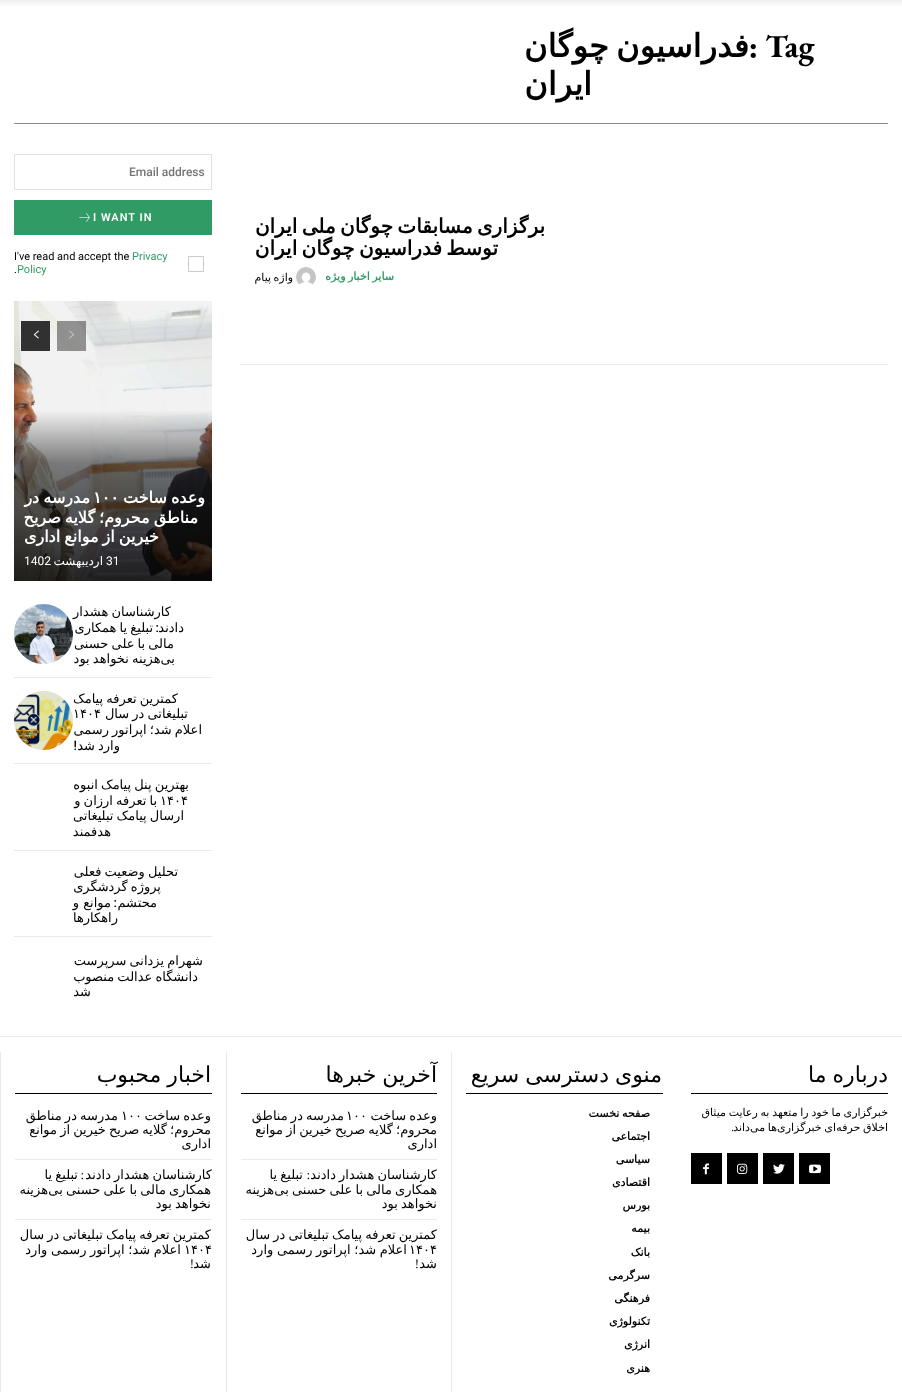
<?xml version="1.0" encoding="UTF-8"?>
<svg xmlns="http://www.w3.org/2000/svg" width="902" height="1392">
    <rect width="100%" height="100%" fill="#FFFFFF"/>
    <image x="0" y="0" width="902" height="6" href="img_01.png"/>
    <rect x="14" y="123" width="874" height="1" fill="#888888"/>
    <text x="749" y="57" font-family="EB Garamond" font-size="32" font-weight="700" fill="#000000">: Tag</text>
    <text x="749" y="57" word-spacing="-3" font-family="DejaVu Sans" font-size="32" font-weight="700" direction="rtl" fill="#000000">فدراسیون چوگان</text>
    <text x="592" y="95" font-family="DejaVu Sans" font-size="32" font-weight="700" direction="rtl" fill="#000000">ایران</text>
    <rect x="240" y="364" width="648" height="1" fill="#EAEAEA"/>
    <text x="545" y="233" word-spacing="-2" font-family="DejaVu Sans" font-size="20" font-weight="700" direction="rtl" fill="#000000">برگزاری مسابقات چوگان ملی ایران</text>
    <text x="498" y="255" word-spacing="-2" font-family="DejaVu Sans" font-size="20" font-weight="700" direction="rtl" fill="#000000">توسط فدراسیون چوگان ایران</text>
    <text x="394" y="280" word-spacing="-1" font-family="DejaVu Sans" font-size="11" font-weight="700" direction="rtl" fill="#309B65">سایر اخبار ویژه</text>
    <image x="296" y="267" width="20" height="18" href="img_02.png"/>
    <text x="293" y="281" word-spacing="-1" font-family="DejaVu Sans" font-size="11" direction="rtl" fill="#000000">واژه پیام</text>
    <rect x="14.5" y="154.5" width="197" height="35" fill="none" stroke="#E1E1E1"/>
    <text x="129" y="176" font-family="Roboto" font-size="12" font-weight="500" fill="#757575">Email address</text>
    <rect x="14" y="200" width="198" height="35" fill="#309B65"/>
    <text x="93" y="221" font-family="Roboto" font-size="11" font-weight="600" letter-spacing="1" fill="#FFFFFF">I WANT IN</text>
    <image x="79" y="213" width="11" height="9" href="img_03.png"/>
    <rect x="188.5" y="256.5" width="15" height="15" fill="none" stroke="#CCCCCC"/>
    <text x="132" y="260" font-family="Roboto" font-size="11" fill="#309B65">Privacy</text>
    <text x="14" y="260" font-family="Roboto" font-size="11" fill="#000000">I've read and accept the</text>
    <text x="17" y="273" font-family="Roboto" font-size="11" fill="#309B65">Policy</text>
    <text x="14" y="273" font-family="Roboto" font-size="11" fill="#000000">.</text>
    <image x="14" y="301" width="198" height="280" href="img_06.png"/>
    <rect x="57" y="321" width="29" height="30" fill="#000000" fill-opacity="0.4"/>
    <image x="69" y="330" width="5" height="9" href="img_04.png"/>
    <rect x="21" y="321" width="29" height="30" fill="#000000" fill-opacity="0.8"/>
    <image x="33" y="330" width="6" height="9" href="img_05.png"/>
    <text x="205" y="503" word-spacing="-1" font-family="DejaVu Sans" font-size="16" font-weight="700" direction="rtl" fill="#FFFFFF">وعده ساخت</text>
    <text x="93" y="503" font-family="DejaVu Sans" font-size="16" font-weight="700" fill="#FFFFFF">۱۰۰</text>
    <text x="90" y="503" word-spacing="-1" font-family="DejaVu Sans" font-size="16" font-weight="700" direction="rtl" fill="#FFFFFF">مدرسه در</text>
    <text x="198" y="523" word-spacing="-1" font-family="DejaVu Sans" font-size="16" font-weight="700" direction="rtl" fill="#FFFFFF">مناطق محروم؛ گلایه صریح</text>
    <text x="159" y="542" word-spacing="-1" font-family="DejaVu Sans" font-size="16" font-weight="700" direction="rtl" fill="#FFFFFF">خیرین از موانع اداری</text>
    <text x="106" y="565" font-family="Roboto" font-size="12" fill="#FFFFFF">31</text>
    <text x="103" y="565" font-family="DejaVu Sans" font-size="12" direction="rtl" fill="#FFFFFF">اردیبهشت</text>
    <text x="24" y="565" font-family="Roboto" font-size="12" fill="#FFFFFF">1402</text>
    <rect x="14" y="677" width="198" height="1" fill="#EAEAEA"/>
    <image x="14" y="604" width="59" height="60" href="img_07.png"/>
    <text x="171" y="616" word-spacing="-1" font-family="DejaVu Sans" font-size="13" direction="rtl" fill="#000000">کارشناسان هشدار</text>
    <text x="184" y="632" font-family="DejaVu Sans" font-size="13" direction="rtl" fill="#000000">دادند</text>
    <text x="159" y="632" font-family="Roboto" font-size="13" font-weight="500" direction="rtl" fill="#000000">:</text>
    <text x="153" y="632" word-spacing="-1" font-family="DejaVu Sans" font-size="13" direction="rtl" fill="#000000">تبلیغ یا همکاری</text>
    <text x="174" y="648" word-spacing="-1" font-family="DejaVu Sans" font-size="13" direction="rtl" fill="#000000">مالی با علی حسنی</text>
    <text x="175" y="663" word-spacing="-1" font-family="DejaVu Sans" font-size="13" direction="rtl" fill="#000000">بی‌هزینه نخواهد بود</text>
    <rect x="14" y="763" width="198" height="1" fill="#EAEAEA"/>
    <text x="178" y="703" word-spacing="-1" font-family="DejaVu Sans" font-size="13" direction="rtl" fill="#000000">کمترین تعرفه پیامک</text>
    <text x="188" y="718" word-spacing="-1" font-family="DejaVu Sans" font-size="13" direction="rtl" fill="#000000">تبلیغاتی در سال</text>
    <text x="73" y="718" font-family="DejaVu Sans" font-size="13" fill="#000000">۱۴۰۴</text>
    <text x="202" y="734" word-spacing="-1" font-family="DejaVu Sans" font-size="13" direction="rtl" fill="#000000">اعلام شد؛ اپراتور رسمی</text>
    <text x="120" y="750" word-spacing="-1" font-family="DejaVu Sans" font-size="13" direction="rtl" fill="#000000">وارد شد</text>
    <text x="77" y="750" font-family="Roboto" font-size="13" font-weight="500" direction="rtl" fill="#000000">!</text>
    <image x="14" y="691" width="59" height="59" href="img_08.png"/>
    <rect x="14" y="850" width="198" height="1" fill="#EAEAEA"/>
    <text x="189" y="789" word-spacing="-1" font-family="DejaVu Sans" font-size="13" direction="rtl" fill="#000000">بهترین پنل پیامک انبوه</text>
    <text x="160" y="805" font-family="DejaVu Sans" font-size="13" fill="#000000">۱۴۰۴</text>
    <text x="157" y="805" word-spacing="-1" font-family="DejaVu Sans" font-size="13" direction="rtl" fill="#000000">با تعرفه ارزان و</text>
    <text x="184" y="820" word-spacing="-1" font-family="DejaVu Sans" font-size="13" direction="rtl" fill="#000000">ارسال پیامک تبلیغاتی</text>
    <text x="111" y="836" font-family="DejaVu Sans" font-size="13" direction="rtl" fill="#000000">هدفمند</text>
    <rect x="14" y="936" width="198" height="1" fill="#EAEAEA"/>
    <text x="178" y="876" word-spacing="-1" font-family="DejaVu Sans" font-size="13" direction="rtl" fill="#000000">تحلیل وضعیت فعلی</text>
    <text x="161" y="891" word-spacing="-1" font-family="DejaVu Sans" font-size="13" direction="rtl" fill="#000000">پروژه گردشگری</text>
    <text x="157" y="907" font-family="DejaVu Sans" font-size="13" direction="rtl" fill="#000000">محتشم</text>
    <text x="117" y="907" font-family="Roboto" font-size="13" font-weight="500" direction="rtl" fill="#000000">:</text>
    <text x="111" y="907" font-family="DejaVu Sans" font-size="13" direction="rtl" fill="#000000">موانع و</text>
    <text x="118" y="922" font-family="DejaVu Sans" font-size="13" direction="rtl" fill="#000000">راهکارها</text>
    <text x="203" y="965" word-spacing="-1" font-family="DejaVu Sans" font-size="13" direction="rtl" fill="#000000">شهرام یزدانی سرپرست</text>
    <text x="198" y="981" word-spacing="-1" font-family="DejaVu Sans" font-size="13" direction="rtl" fill="#000000">دانشگاه عدالت منصوب</text>
    <text x="91" y="996" font-family="DejaVu Sans" font-size="13" direction="rtl" fill="#000000">شد</text>
    <rect x="0" y="1036" width="902" height="1" fill="#EAEAEA"/>
    <text x="888" y="1082" word-spacing="-1" font-family="DejaVu Sans" font-size="22" direction="rtl" fill="#000000">درباره ما</text>
    <rect x="691" y="1093" width="197" height="1" fill="#000000"/>
    <text font-family="DejaVu Sans" font-size="11" direction="rtl" fill="#000000">
        <tspan x="888" y="1116" word-spacing="-0.75">خبرگزاری ما خود را متعهد به رعایت میثاق</tspan>
        <tspan x="888" y="1131" word-spacing="-0.75">اخلاق حرفه</tspan>
    </text>
    <text x="836" y="1131" word-spacing="-0.75" font-family="DejaVu Sans" font-size="11" direction="rtl" fill="#000000">ای خبرگزاری</text>
    <text x="777" y="1131" word-spacing="-0.75" font-family="DejaVu Sans" font-size="11" direction="rtl" fill="#000000">ها می</text>
    <text x="750" y="1131" font-family="DejaVu Sans" font-size="11" direction="rtl" fill="#000000">داند</text>
    <text x="734" y="1131" font-family="Liberation Serif" font-size="11" direction="rtl" fill="#000000">.</text>
    <rect x="799" y="1153" width="31" height="31" fill="#000000"/>
    <image x="809" y="1164" width="12" height="10" href="img_09.png"/>
    <rect x="763" y="1153" width="31" height="31" fill="#000000"/>
    <image x="773" y="1164" width="12" height="10" href="img_10.png"/>
    <rect x="727" y="1153" width="31" height="31" fill="#000000"/>
    <image x="737" y="1163" width="11" height="11" href="img_11.png"/>
    <rect x="691" y="1153" width="31" height="31" fill="#000000"/>
    <image x="703" y="1163" width="6" height="12" href="img_12.png"/>
    <rect x="451" y="1052" width="1" height="340" fill="#EAEAEA"/>
    <text x="662" y="1082" word-spacing="-1" font-family="DejaVu Sans" font-size="22" direction="rtl" fill="#000000">منوی دسترسی سریع</text>
    <rect x="466" y="1093" width="197" height="1" fill="#000000"/>
    <text x="650" y="1117" word-spacing="-0.75" font-family="DejaVu Sans" font-size="11" font-weight="700" direction="rtl" fill="#000000">صفحه نخست</text>
    <text x="650" y="1140" font-family="DejaVu Sans" font-size="11" font-weight="700" direction="rtl" fill="#000000">اجتماعی</text>
    <text x="650" y="1163" font-family="DejaVu Sans" font-size="11" font-weight="700" direction="rtl" fill="#000000">سیاسی</text>
    <text x="650" y="1186" font-family="DejaVu Sans" font-size="11" font-weight="700" direction="rtl" fill="#000000">اقتصادی</text>
    <text x="650" y="1209" font-family="DejaVu Sans" font-size="11" font-weight="700" direction="rtl" fill="#000000">بورس</text>
    <text x="650" y="1232" font-family="DejaVu Sans" font-size="11" font-weight="700" direction="rtl" fill="#000000">بیمه</text>
    <text x="650" y="1256" font-family="DejaVu Sans" font-size="11" font-weight="700" direction="rtl" fill="#000000">بانک</text>
    <text x="650" y="1279" font-family="DejaVu Sans" font-size="11" font-weight="700" direction="rtl" fill="#000000">سرگرمی</text>
    <text x="650" y="1302" font-family="DejaVu Sans" font-size="11" font-weight="700" direction="rtl" fill="#000000">فرهنگی</text>
    <text x="650" y="1325" font-family="DejaVu Sans" font-size="11" font-weight="700" direction="rtl" fill="#000000">تکنولوژی</text>
    <text x="650" y="1348" font-family="DejaVu Sans" font-size="11" font-weight="700" direction="rtl" fill="#000000">انرژی</text>
    <text x="650" y="1372" font-family="DejaVu Sans" font-size="11" font-weight="700" direction="rtl" fill="#000000">هنری</text>
    <rect x="226" y="1052" width="1" height="340" fill="#EAEAEA"/>
    <text x="437" y="1082" word-spacing="-1" font-family="DejaVu Sans" font-size="22" direction="rtl" fill="#000000">آخرین خبرها</text>
    <rect x="241" y="1093" width="196" height="1" fill="#000000"/>
    <rect x="241" y="1159" width="196" height="1" fill="#EAEAEA"/>
    <text x="437" y="1120" word-spacing="-1" font-family="DejaVu Sans" font-size="13" direction="rtl" fill="#000000">وعده ساخت</text>
    <text x="346" y="1120" font-family="DejaVu Sans" font-size="13" fill="#000000">۱۰۰</text>
    <text x="344" y="1120" word-spacing="-1" font-family="DejaVu Sans" font-size="13" direction="rtl" fill="#000000">مدرسه در مناطق</text>
    <text font-family="DejaVu Sans" font-size="13" direction="rtl" fill="#000000">
        <tspan x="437" y="1134" word-spacing="-1">محروم؛ گلایه صریح خیرین از موانع</tspan>
        <tspan x="437" y="1148">اداری</tspan>
    </text>
    <rect x="241" y="1219" width="196" height="1" fill="#EAEAEA"/>
    <text x="437" y="1179" word-spacing="-1" font-family="DejaVu Sans" font-size="13" direction="rtl" fill="#000000">کارشناسان هشدار دادند</text>
    <text x="310" y="1179" font-family="Liberation Serif" font-size="13" direction="rtl" fill="#000000">:</text>
    <text x="303" y="1179" word-spacing="-1" font-family="DejaVu Sans" font-size="13" direction="rtl" fill="#000000">تبلیغ یا</text>
    <text x="437" y="1194" word-spacing="-1" font-family="DejaVu Sans" font-size="13" direction="rtl" fill="#000000">همکاری مالی با علی حسنی بی</text>
    <text x="274" y="1194" font-family="DejaVu Sans" font-size="13" direction="rtl" fill="#000000">هزینه</text>
    <text x="437" y="1208" word-spacing="-1" font-family="DejaVu Sans" font-size="13" direction="rtl" fill="#000000">نخواهد بود</text>
    <text x="437" y="1239" word-spacing="-1" font-family="DejaVu Sans" font-size="13" direction="rtl" fill="#000000">کمترین تعرفه پیامک تبلیغاتی در سال</text>
    <text x="409" y="1254" font-family="DejaVu Sans" font-size="13" fill="#000000">۱۴۰۴</text>
    <text x="407" y="1254" word-spacing="-0.5" font-family="DejaVu Sans" font-size="13" direction="rtl" fill="#000000">اعلام شد؛ اپراتور رسمی وارد</text>
    <text x="437" y="1268" font-family="DejaVu Sans" font-size="13" direction="rtl" fill="#000000">شد</text>
    <text x="419" y="1268" font-family="Liberation Serif" font-size="13" direction="rtl" fill="#000000">!</text>
    <rect x="0" y="1052" width="1" height="340" fill="#EAEAEA"/>
    <text x="211" y="1082" word-spacing="-1" font-family="DejaVu Sans" font-size="22" direction="rtl" fill="#000000">اخبار محبوب</text>
    <rect x="15" y="1093" width="197" height="1" fill="#000000"/>
    <rect x="15" y="1159" width="197" height="1" fill="#EAEAEA"/>
    <text x="211" y="1120" word-spacing="-1" font-family="DejaVu Sans" font-size="13" direction="rtl" fill="#000000">وعده ساخت</text>
    <text x="121" y="1120" font-family="DejaVu Sans" font-size="13" fill="#000000">۱۰۰</text>
    <text x="118" y="1120" word-spacing="-1" font-family="DejaVu Sans" font-size="13" direction="rtl" fill="#000000">مدرسه در مناطق</text>
    <text font-family="DejaVu Sans" font-size="13" direction="rtl" fill="#000000">
        <tspan x="211" y="1134" word-spacing="-1">محروم؛ گلایه صریح خیرین از موانع</tspan>
        <tspan x="211" y="1148">اداری</tspan>
    </text>
    <rect x="15" y="1219" width="197" height="1" fill="#EAEAEA"/>
    <text x="212" y="1179" word-spacing="-1" font-family="DejaVu Sans" font-size="13" direction="rtl" fill="#000000">کارشناسان هشدار دادند</text>
    <text x="84" y="1179" font-family="Liberation Serif" font-size="13" direction="rtl" fill="#000000">:</text>
    <text x="78" y="1179" word-spacing="-1" font-family="DejaVu Sans" font-size="13" direction="rtl" fill="#000000">تبلیغ یا</text>
    <text x="211" y="1194" word-spacing="-1" font-family="DejaVu Sans" font-size="13" direction="rtl" fill="#000000">همکاری مالی با علی حسنی بی</text>
    <text x="48" y="1194" font-family="DejaVu Sans" font-size="13" direction="rtl" fill="#000000">هزینه</text>
    <text x="211" y="1208" word-spacing="-1" font-family="DejaVu Sans" font-size="13" direction="rtl" fill="#000000">نخواهد بود</text>
    <text x="211" y="1239" word-spacing="-1" font-family="DejaVu Sans" font-size="13" direction="rtl" fill="#000000">کمترین تعرفه پیامک تبلیغاتی در سال</text>
    <text x="184" y="1254" font-family="DejaVu Sans" font-size="13" fill="#000000">۱۴۰۴</text>
    <text x="181" y="1254" word-spacing="-0.5" font-family="DejaVu Sans" font-size="13" direction="rtl" fill="#000000">اعلام شد؛ اپراتور رسمی وارد</text>
    <text x="211" y="1268" font-family="DejaVu Sans" font-size="13" direction="rtl" fill="#000000">شد</text>
    <text x="194" y="1268" font-family="Liberation Serif" font-size="13" direction="rtl" fill="#000000">!</text>
</svg>
